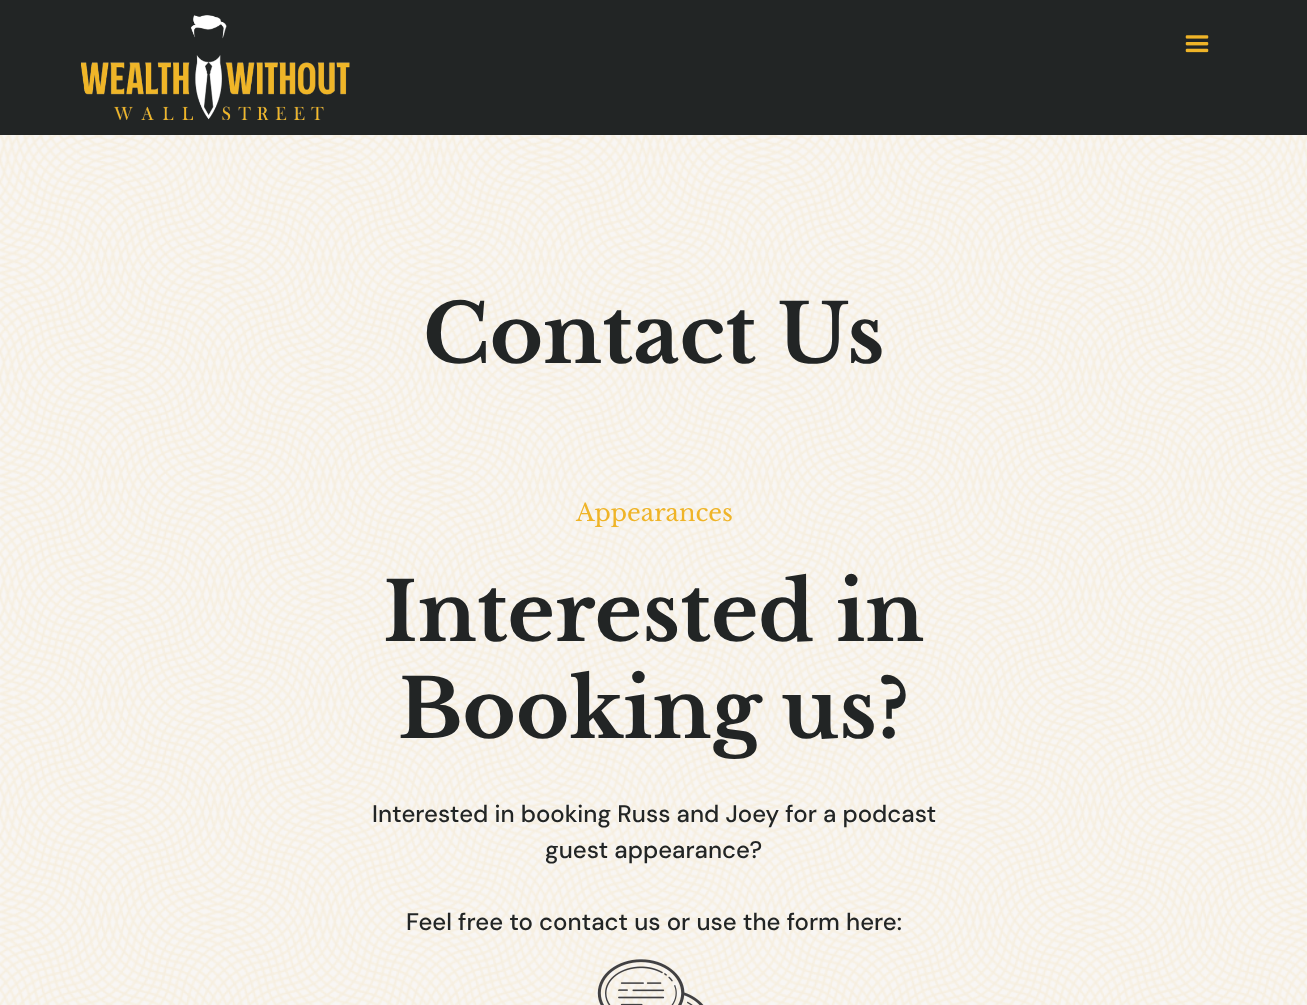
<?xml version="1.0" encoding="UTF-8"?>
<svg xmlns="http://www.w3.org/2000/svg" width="1307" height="1005">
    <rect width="100%" height="100%" fill="#222525"/>
    <image x="81" y="15" width="269" height="105" href="img_01.png"/>
    <image x="1185" y="35" width="24" height="18" href="img_02.png"/>
    <rect x="0" y="135" width="1307" height="870" fill="#F8F6F4"/>
    <image x="0" y="135" width="1307" height="870" href="img_03.png"/>
    <text x="423" y="363" font-family="Libre Baskerville" font-size="81" font-weight="700" fill="#222525">Contact Us</text>
    <text x="576" y="521" font-family="Libre Baskerville" font-size="24" fill="#EFB428">Appearances</text>
    <text x="383" y="641" font-family="Libre Baskerville" font-size="81" font-weight="700" fill="#222525">Interested in</text>
    <text x="398" y="738" font-family="Libre Baskerville" font-size="81" font-weight="700" fill="#222525">Booking us?</text>
    <text x="372" y="822" font-family="DM Sans" font-size="24" font-weight="500" fill="#222525">Interested in booking Russ and Joey for a podcast</text>
    <text x="545" y="858" font-family="DM Sans" font-size="24" font-weight="500" fill="#222525">guest appearance?</text>
    <text x="406" y="930" font-family="DM Sans" font-size="24" font-weight="500" fill="#222525">Feel free to contact us or use the form here:</text>
    <image x="597" y="959" width="107" height="46" href="img_04.png"/>
</svg>
